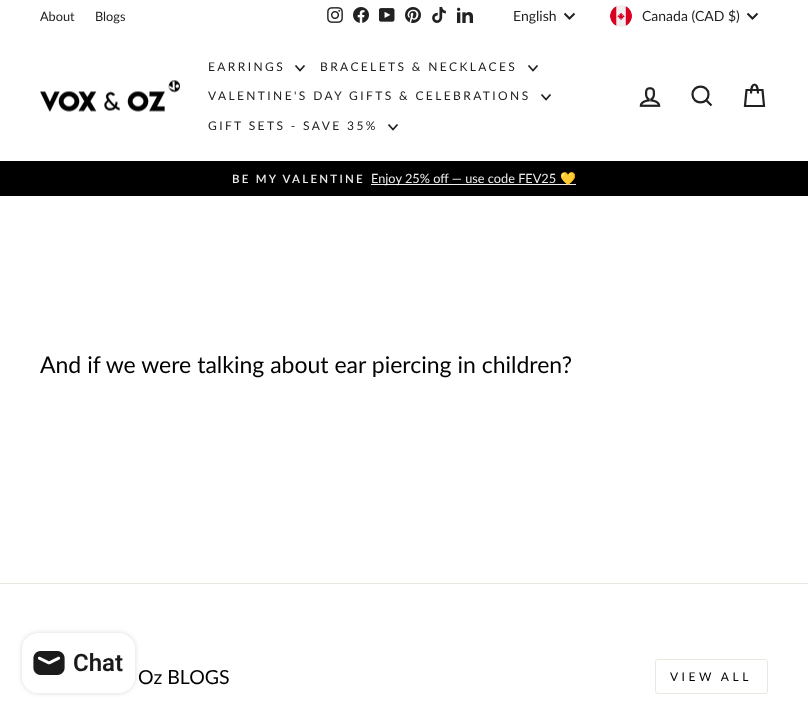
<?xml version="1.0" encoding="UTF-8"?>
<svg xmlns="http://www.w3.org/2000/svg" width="808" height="714">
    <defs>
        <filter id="blur1" x="-50%" y="-200%" width="200%" height="500%"><feGaussianBlur stdDeviation="2.5"/></filter>
    </defs>
    <rect width="100%" height="100%" fill="#FFFFFF"/>
    <text x="40" y="21" font-family="Lato" font-size="12.75" fill="#212121">About</text>
    <text x="95" y="21" font-family="Lato" font-size="12.75" fill="#212121">Blogs</text>
    <image x="327" y="7" width="16" height="16" href="img_01.png"/>
    <image x="353" y="7" width="16" height="16" href="img_02.png"/>
    <image x="379" y="8" width="16" height="14" href="img_03.png"/>
    <image x="405" y="7" width="16" height="16" href="img_04.png"/>
    <image x="432" y="7" width="14" height="16" href="img_05.png"/>
    <image x="457" y="7" width="16" height="16" href="img_06.png"/>
    <text x="513" y="21" font-family="Lato" font-size="14" fill="#212121">English</text>
    <path d="M 564.5 13.5 L 569.5 18.5 L 574.5 13.5" fill="none" stroke="#212121" stroke-width="2"/>
    <image x="610" y="5" width="22" height="22" href="img_07.png"/>
    <text x="642" y="21" font-family="Lato" font-size="14" fill="#212121">Canada (CAD $)</text>
    <path d="M 747.5 13.5 L 752.5 18.5 L 757.5 13.5" fill="none" stroke="#212121" stroke-width="2"/>
    <image x="40" y="80" width="140" height="32" href="img_08.png"/>
    <text x="208" y="71" font-family="Lato" font-size="12" letter-spacing="2.4" fill="#212121">EARRINGS</text>
    <path d="M 295.5 65.5 L 300 70.5 L 304.5 65.5" fill="none" stroke="#212121" stroke-width="1.8"/>
    <text x="320" y="71" font-family="Lato" font-size="12" letter-spacing="2.4" fill="#212121">BRACELETS &amp; NECKLACES</text>
    <path d="M 528.5 65.5 L 533 70.5 L 537.5 65.5" fill="none" stroke="#212121" stroke-width="1.8"/>
    <text x="208" y="100" font-family="Lato" font-size="12" letter-spacing="2.4" fill="#212121">VALENTINE'S DAY GIFTS &amp; CELEBRATIONS</text>
    <path d="M 541.5 94.5 L 546 99.5 L 550.5 94.5" fill="none" stroke="#212121" stroke-width="1.8"/>
    <text x="208" y="130" font-family="Lato" font-size="12" letter-spacing="2.4" fill="#212121">GIFT SETS - SAVE 35%</text>
    <path d="M 388.5 124.5 L 393 129.5 L 397.5 124.5" fill="none" stroke="#212121" stroke-width="1.8"/>
    <image x="639" y="87" width="22" height="20" href="img_09.png"/>
    <path d="M 708.5 94.5 C 708.5 105 692.5 105 692.5 94.5 C 692.5 84 708.5 84 708.5 94.5 Z M 711.5 105.5 L 706.5 100.5" fill="none" stroke="#212121" stroke-width="2.2"/>
    <path d="M 751 93.5 C 751 81.5 758 81.5 758 93.5 M 746.5 90 H 762.5 L 764 106 H 745 Z" fill="none" stroke="#212121" stroke-width="2.2"/>
    <rect x="0" y="161" width="808" height="35" fill="#000000"/>
    <text x="232" y="183" font-family="Lato" font-size="11.5" font-weight="600" letter-spacing="2.25" fill="#EDEDED">BE MY VALENTINE</text>
    <rect x="371" y="184" width="205" height="1" fill="#EDEDED"/>
    <text x="371" y="183" font-family="Lato" font-size="12.75" fill="#EDEDED">Enjoy 25% off — use code FEV25</text>
    <text x="560" y="183" font-family="Noto Color Emoji" font-size="12.75" fill="#EDEDED">💛</text>
    <text x="40" y="373" font-family="Lato" font-size="23" fill="#000000">And if we were talking about ear piercing in children?</text>
    <rect x="0" y="583" width="808" height="1" fill="#E8E8E1"/>
    <text x="138" y="684" font-family="Lato" font-size="19.5" fill="#000000">Oz BLOGS</text>
    <rect x="655.5" y="659.5" width="112" height="34" rx="2.5" fill="none" stroke="#E8E8E1"/>
    <text x="670" y="681" font-family="Lato" font-size="12" letter-spacing="3.5" fill="#000000">VIEW ALL</text>
    <rect x="22" y="633" width="113" height="60" rx="16" fill="#000000" fill-opacity="0.15" filter="url(#blur1)"/>
    <rect x="22" y="633" width="113" height="60" rx="16" fill="#FFFFFF"/>
    <image x="33" y="651" width="32" height="24" href="img_10.png"/>
    <text x="73" y="671" font-family="Roboto" font-size="24" font-weight="600" fill="#1B1B1B">Chat</text>
</svg>
